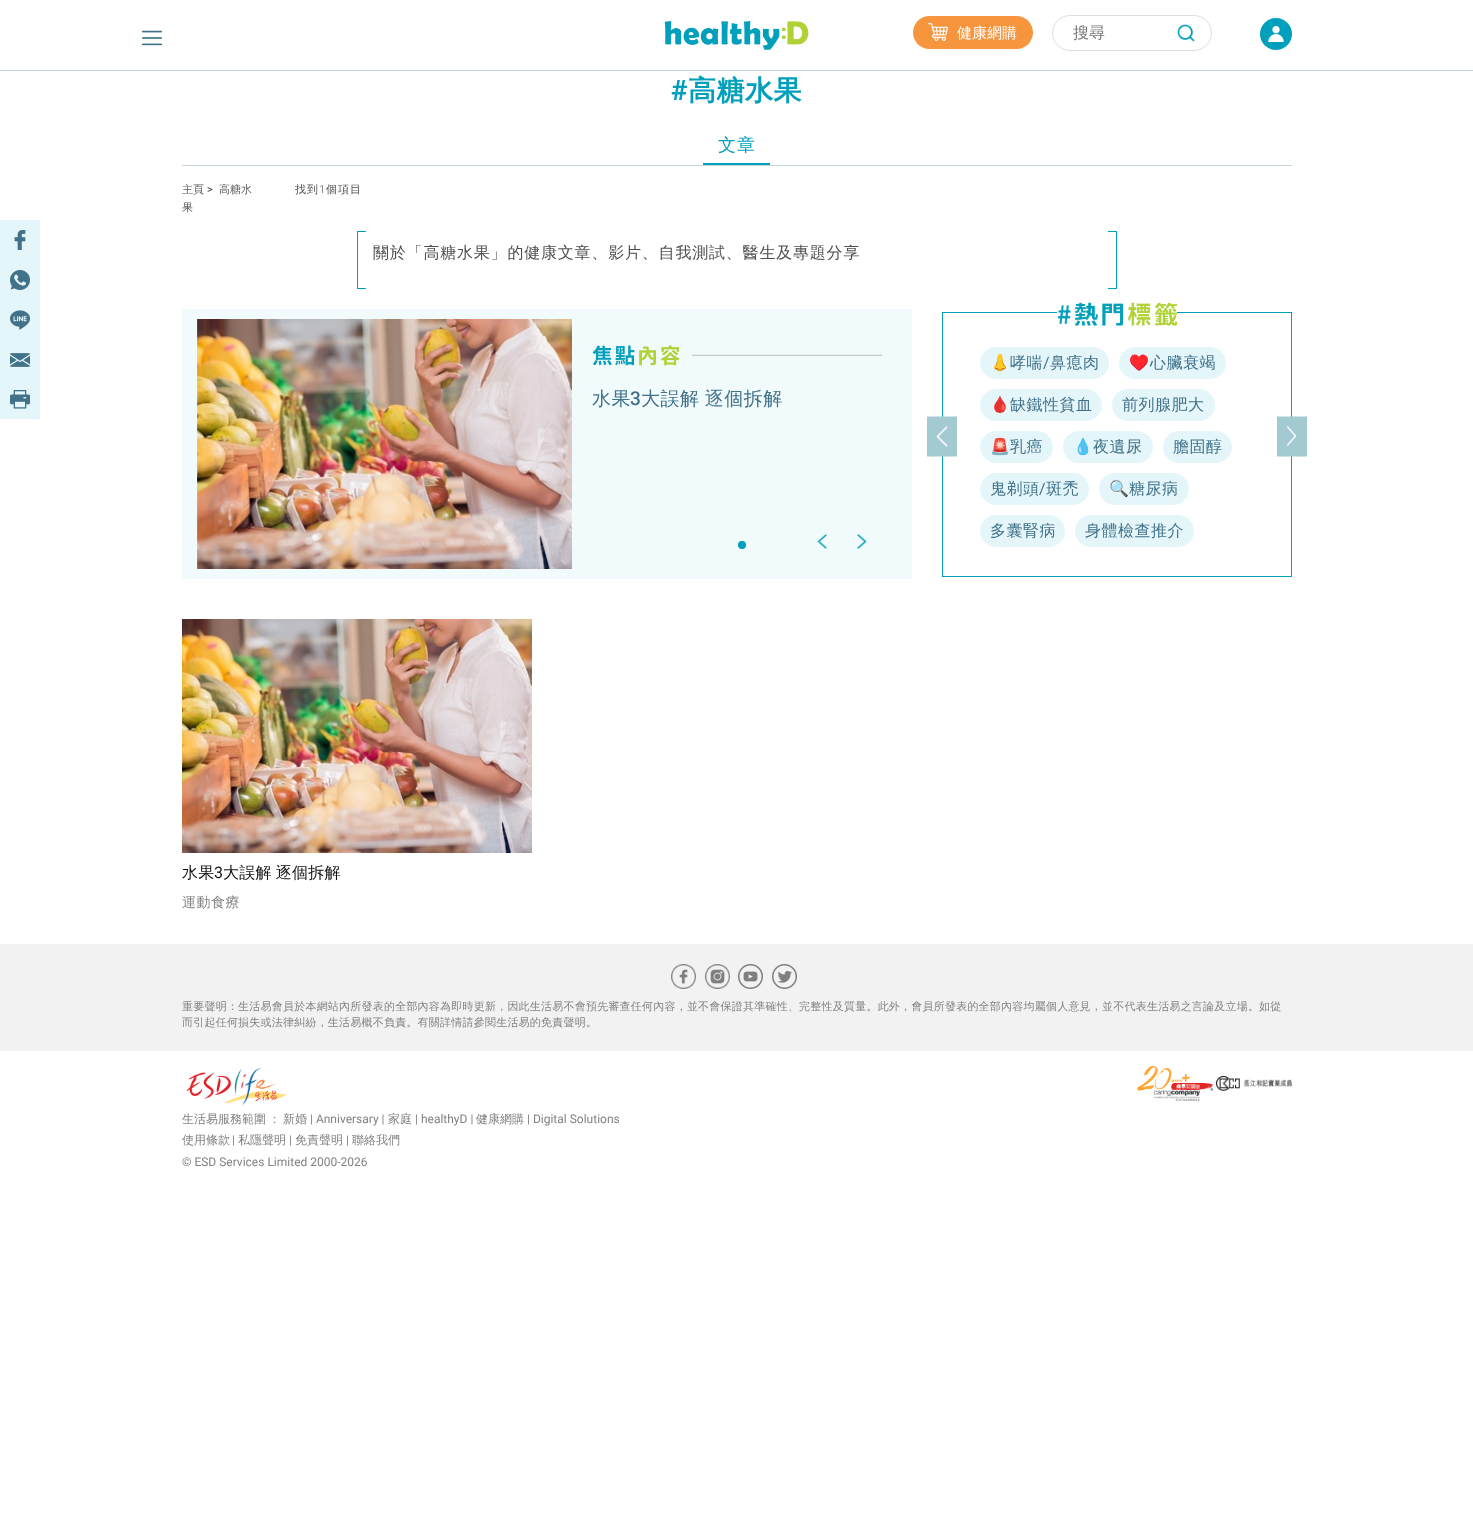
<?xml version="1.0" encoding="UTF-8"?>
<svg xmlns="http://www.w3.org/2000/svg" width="1473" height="1540">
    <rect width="100%" height="100%" fill="#FFFFFF"/>
    <rect x="0" y="70" width="1473" height="1" fill="#C6D5DC"/>
    <image x="142" y="30" width="20" height="16" href="img_01.png"/>
    <image x="664" y="20" width="145" height="30" href="img_02.png"/>
    <rect x="913" y="16" width="120" height="33" rx="16.5" fill="#F6953E"/>
    <image x="928" y="23" width="20" height="18" href="img_03.png"/>
    <text x="957" y="38" font-family="WenQuanYi Zen Hei" font-size="15" font-weight="500" fill="#FFFFFF">健康網購</text>
    <rect x="1052.5" y="15.5" width="159" height="35" rx="17.5" fill="none" stroke="#E0E0E0"/>
    <text x="1073" y="38" font-family="WenQuanYi Zen Hei" font-size="16" font-weight="500" fill="#757575">搜尋</text>
    <image x="1177" y="24" width="18" height="18" href="img_04.png"/>
    <circle cx="1276" cy="34" r="16" fill="#009FBB"/>
    <image x="1268" y="26" width="16" height="16" href="img_05.png"/>
    <rect x="0" y="220" width="40" height="199" fill="#E4F6FA"/>
    <image x="14" y="230" width="12" height="20" href="img_06.png"/>
    <image x="10" y="270" width="20" height="20" href="img_07.png"/>
    <image x="10" y="310" width="20" height="20" href="img_08.png"/>
    <image x="10" y="353" width="20" height="14" href="img_09.png"/>
    <image x="10" y="390" width="20" height="19" href="img_10.png"/>
    <text x="671" y="100" font-family="Roboto" font-size="28" font-weight="700" letter-spacing="0.5" fill="#009FBB">#</text>
    <text x="688" y="100" font-family="WenQuanYi Zen Hei" font-size="28" font-weight="700" letter-spacing="0.5" fill="#009FBB">高糖水果</text>
    <rect x="182" y="165" width="1110" height="1" fill="#C6D5DC"/>
    <rect x="703" y="163" width="67" height="2" fill="#009FBB"/>
    <text x="718" y="151" font-family="WenQuanYi Zen Hei" font-size="18" font-weight="500" letter-spacing="1" fill="#009FBB">文章</text>
    <text x="182" y="193" font-family="WenQuanYi Zen Hei" font-size="11" font-weight="500" fill="#595959">主頁</text>
    <text x="207" y="193" font-family="Roboto" font-size="11" font-weight="500" fill="#595959">&gt;</text>
    <text x="219" y="193" font-family="WenQuanYi Zen Hei" font-size="11" font-weight="500" fill="#595959">高糖水</text>
    <text x="182" y="211" font-family="WenQuanYi Zen Hei" font-size="11" font-weight="500" fill="#595959">果</text>
    <text x="295" y="193" font-family="WenQuanYi Zen Hei" font-size="11" font-weight="500" letter-spacing="1" fill="#4F4F4F">找到</text>
    <text x="319" y="193" font-family="Roboto" font-size="11" font-weight="300" letter-spacing="1" fill="#4F4F4F">1</text>
    <text x="326" y="193" font-family="WenQuanYi Zen Hei" font-size="11" font-weight="500" letter-spacing="1" fill="#4F4F4F">個項目</text>
    <rect x="1108" y="288" width="8" height="1" fill="#009FBB"/>
    <rect x="358" y="288" width="8" height="1" fill="#009FBB"/>
    <rect x="1108" y="231" width="8" height="1" fill="#009FBB"/>
    <rect x="358" y="231" width="8" height="1" fill="#009FBB"/>
    <rect x="1116" y="231" width="1" height="58" fill="#009FBB"/>
    <rect x="357" y="231" width="1" height="58" fill="#009FBB"/>
    <text x="373" y="258" font-family="WenQuanYi Zen Hei" font-size="16" font-weight="500" letter-spacing="0.8" fill="#4F4F4F">關於「高糖水果」的健康文章、影片、自我測試、醫生及專題分享</text>
    <rect x="182" y="309" width="730" height="270" fill="#F2FBFC"/>
    <image x="197" y="319" width="375" height="250" href="img_11.png"/>
    <image x="592" y="345" width="290" height="21" href="img_12.png"/>
    <text x="592" y="405" font-family="WenQuanYi Zen Hei" font-size="19" font-weight="500" letter-spacing="0.5" fill="#41728A">水果</text>
    <text x="630" y="405" font-family="Roboto" font-size="19" font-weight="500" letter-spacing="0.5" fill="#41728A">3</text>
    <text x="641" y="405" word-spacing="-1" font-family="WenQuanYi Zen Hei" font-size="19" font-weight="500" letter-spacing="0.5" fill="#41728A">大誤解 逐個拆解</text>
    <circle cx="742" cy="545" r="4" fill="#009FBB"/>
    <image x="817" y="534" width="10" height="15" href="img_13.png"/>
    <image x="857" y="534" width="10" height="15" href="img_14.png"/>
    <rect x="942.5" y="312.5" width="349" height="264" fill="none" stroke="#009FBB"/>
    <rect x="1057" y="325" width="120" height="1" fill="#F6F8F9"/>
    <image x="1057" y="302" width="120" height="24" href="img_15.png"/>
    <image x="927" y="416" width="30" height="41" href="img_16.png"/>
    <rect x="980" y="347" width="129" height="32" rx="16" fill="#E4F6FA"/>
    <text x="990" y="368" font-family="Noto Color Emoji" font-size="16" letter-spacing="0.5" fill="#41728A">👃</text>
    <text x="1010" y="368" font-family="WenQuanYi Zen Hei" font-size="16" font-weight="500" letter-spacing="0.5" fill="#41728A">哮喘</text>
    <text x="1043" y="368" font-family="Roboto" font-size="16" letter-spacing="0.5" fill="#41728A">/</text>
    <text x="1050" y="368" font-family="WenQuanYi Zen Hei" font-size="16" font-weight="500" letter-spacing="0.5" fill="#41728A">鼻瘜肉</text>
    <rect x="1119" y="347" width="107" height="32" rx="16" fill="#E4F6FA"/>
    <text x="1129" y="368" font-family="Noto Color Emoji" font-size="16" letter-spacing="0.5" fill="#41728A">♥️</text>
    <text x="1150" y="368" font-family="WenQuanYi Zen Hei" font-size="16" font-weight="500" letter-spacing="0.5" fill="#41728A">心臟衰竭</text>
    <rect x="980" y="389" width="122" height="32" rx="16" fill="#E4F6FA"/>
    <text x="990" y="410" font-family="Noto Color Emoji" font-size="16" letter-spacing="0.5" fill="#41728A">🩸</text>
    <text x="1010" y="410" font-family="WenQuanYi Zen Hei" font-size="16" font-weight="500" letter-spacing="0.5" fill="#41728A">缺鐵性貧血</text>
    <rect x="1112" y="389" width="103" height="32" rx="16" fill="#E4F6FA"/>
    <text x="1122" y="410" font-family="WenQuanYi Zen Hei" font-size="16" font-weight="500" letter-spacing="0.5" fill="#41728A">前列腺肥大</text>
    <rect x="980" y="431" width="73" height="32" rx="16" fill="#E4F6FA"/>
    <text x="990" y="452" font-family="Noto Color Emoji" font-size="16" letter-spacing="0.5" fill="#41728A">🚨</text>
    <text x="1010" y="452" font-family="WenQuanYi Zen Hei" font-size="16" font-weight="500" letter-spacing="0.5" fill="#41728A">乳癌</text>
    <rect x="1063" y="431" width="90" height="32" rx="16" fill="#E4F6FA"/>
    <text x="1073" y="452" font-family="Noto Color Emoji" font-size="16" letter-spacing="0.5" fill="#41728A">💧</text>
    <text x="1093" y="452" font-family="WenQuanYi Zen Hei" font-size="16" font-weight="500" letter-spacing="0.5" fill="#41728A">夜遺尿</text>
    <rect x="1163" y="431" width="69" height="32" rx="16" fill="#E4F6FA"/>
    <text x="1173" y="452" font-family="WenQuanYi Zen Hei" font-size="16" font-weight="500" letter-spacing="0.5" fill="#41728A">膽固醇</text>
    <rect x="980" y="473" width="109" height="32" rx="16" fill="#E4F6FA"/>
    <text x="990" y="494" font-family="WenQuanYi Zen Hei" font-size="16" font-weight="500" letter-spacing="0.5" fill="#41728A">鬼剃頭</text>
    <text x="1039" y="494" font-family="Roboto" font-size="16" letter-spacing="0.5" fill="#41728A">/</text>
    <text x="1046" y="494" font-family="WenQuanYi Zen Hei" font-size="16" font-weight="500" letter-spacing="0.5" fill="#41728A">斑禿</text>
    <rect x="1099" y="473" width="90" height="32" rx="16" fill="#E4F6FA"/>
    <text x="1109" y="494" font-family="Noto Color Emoji" font-size="16" letter-spacing="0.5" fill="#41728A">🔍</text>
    <text x="1129" y="494" font-family="WenQuanYi Zen Hei" font-size="16" font-weight="500" letter-spacing="0.5" fill="#41728A">糖尿病</text>
    <rect x="980" y="515" width="85" height="32" rx="16" fill="#E4F6FA"/>
    <text x="990" y="536" font-family="WenQuanYi Zen Hei" font-size="16" font-weight="500" letter-spacing="0.5" fill="#41728A">多囊腎病</text>
    <rect x="1075" y="515" width="119" height="32" rx="16" fill="#E4F6FA"/>
    <text x="1085" y="536" font-family="WenQuanYi Zen Hei" font-size="16" font-weight="500" letter-spacing="0.5" fill="#41728A">身體檢查推介</text>
    <image x="1277" y="416" width="30" height="41" href="img_17.png"/>
    <image x="182" y="619" width="350" height="234" href="img_18.png"/>
    <text x="182" y="878" font-family="WenQuanYi Zen Hei" font-size="16" font-weight="500" letter-spacing="0.25" fill="#111111">水果</text>
    <text x="214" y="878" font-family="Roboto" font-size="16" letter-spacing="0.25" fill="#111111">3</text>
    <text x="223" y="878" word-spacing="-1" font-family="WenQuanYi Zen Hei" font-size="16" font-weight="500" letter-spacing="0.25" fill="#111111">大誤解 逐個拆解</text>
    <text x="182" y="907" font-family="WenQuanYi Zen Hei" font-size="14" font-weight="500" letter-spacing="0.5" fill="#828282">運動食療</text>
    <rect x="0" y="944" width="1473" height="107" fill="#F2F2F2"/>
    <image x="671" y="964" width="25" height="25" href="img_19.png"/>
    <image x="705" y="964" width="25" height="25" href="img_20.png"/>
    <image x="738" y="964" width="25" height="25" href="img_21.png"/>
    <image x="772" y="964" width="25" height="25" href="img_22.png"/>
    <text font-family="WenQuanYi Zen Hei" font-size="11" font-weight="500" letter-spacing="0.22" fill="#828282">
        <tspan x="182" y="1010">重要聲明：生活易會員於本網站內所發表的全部內容為即時更新，因此生活易不會預先審查任何內容，並不會保證其準確性、完整性及質量。此外，會員所發表的全部內容均屬個人意見，並不代表生活易之言論及立場。如從</tspan>
        <tspan x="182" y="1026">而引起任何損失或法律糾紛，生活易概不負責。有關詳情請參閱生活易的免責聲明。</tspan>
    </text>
    <image x="186" y="1068" width="102" height="37" href="img_23.png"/>
    <image x="1137" y="1066" width="76" height="35" href="img_24.png"/>
    <image x="1216" y="1076" width="76" height="15" href="img_25.png"/>
    <text x="182" y="1123" word-spacing="-1" font-family="WenQuanYi Zen Hei" font-size="12" font-weight="500" fill="#828282">生活易服務範圍 ：</text>
    <text x="283" y="1123" font-family="WenQuanYi Zen Hei" font-size="12" font-weight="500" fill="#828282">新婚</text>
    <text x="310" y="1123" font-family="Roboto" font-size="12" fill="#828282">| Anniversary |</text>
    <text x="388" y="1123" font-family="WenQuanYi Zen Hei" font-size="12" font-weight="500" fill="#828282">家庭</text>
    <text x="415" y="1123" font-family="Roboto" font-size="12" fill="#828282">| healthyD |</text>
    <text x="476" y="1123" font-family="WenQuanYi Zen Hei" font-size="12" font-weight="500" fill="#828282">健康網購</text>
    <text x="527" y="1123" font-family="Roboto" font-size="12" fill="#828282">| Digital Solutions</text>
    <text x="182" y="1144" font-family="WenQuanYi Zen Hei" font-size="12" font-weight="500" fill="#828282">使用條款</text>
    <text x="232" y="1144" font-family="Roboto" font-size="12" fill="#828282">|</text>
    <text x="238" y="1144" font-family="WenQuanYi Zen Hei" font-size="12" font-weight="500" fill="#828282">私隱聲明</text>
    <text x="289" y="1144" font-family="Roboto" font-size="12" fill="#828282">|</text>
    <text x="295" y="1144" font-family="WenQuanYi Zen Hei" font-size="12" font-weight="500" fill="#828282">免責聲明</text>
    <text x="346" y="1144" font-family="Roboto" font-size="12" fill="#828282">|</text>
    <text x="352" y="1144" font-family="WenQuanYi Zen Hei" font-size="12" font-weight="500" fill="#828282">聯絡我們</text>
    <text x="182" y="1166" font-family="Roboto" font-size="12" fill="#828282">© ESD Services Limited 2000-2026</text>
</svg>
